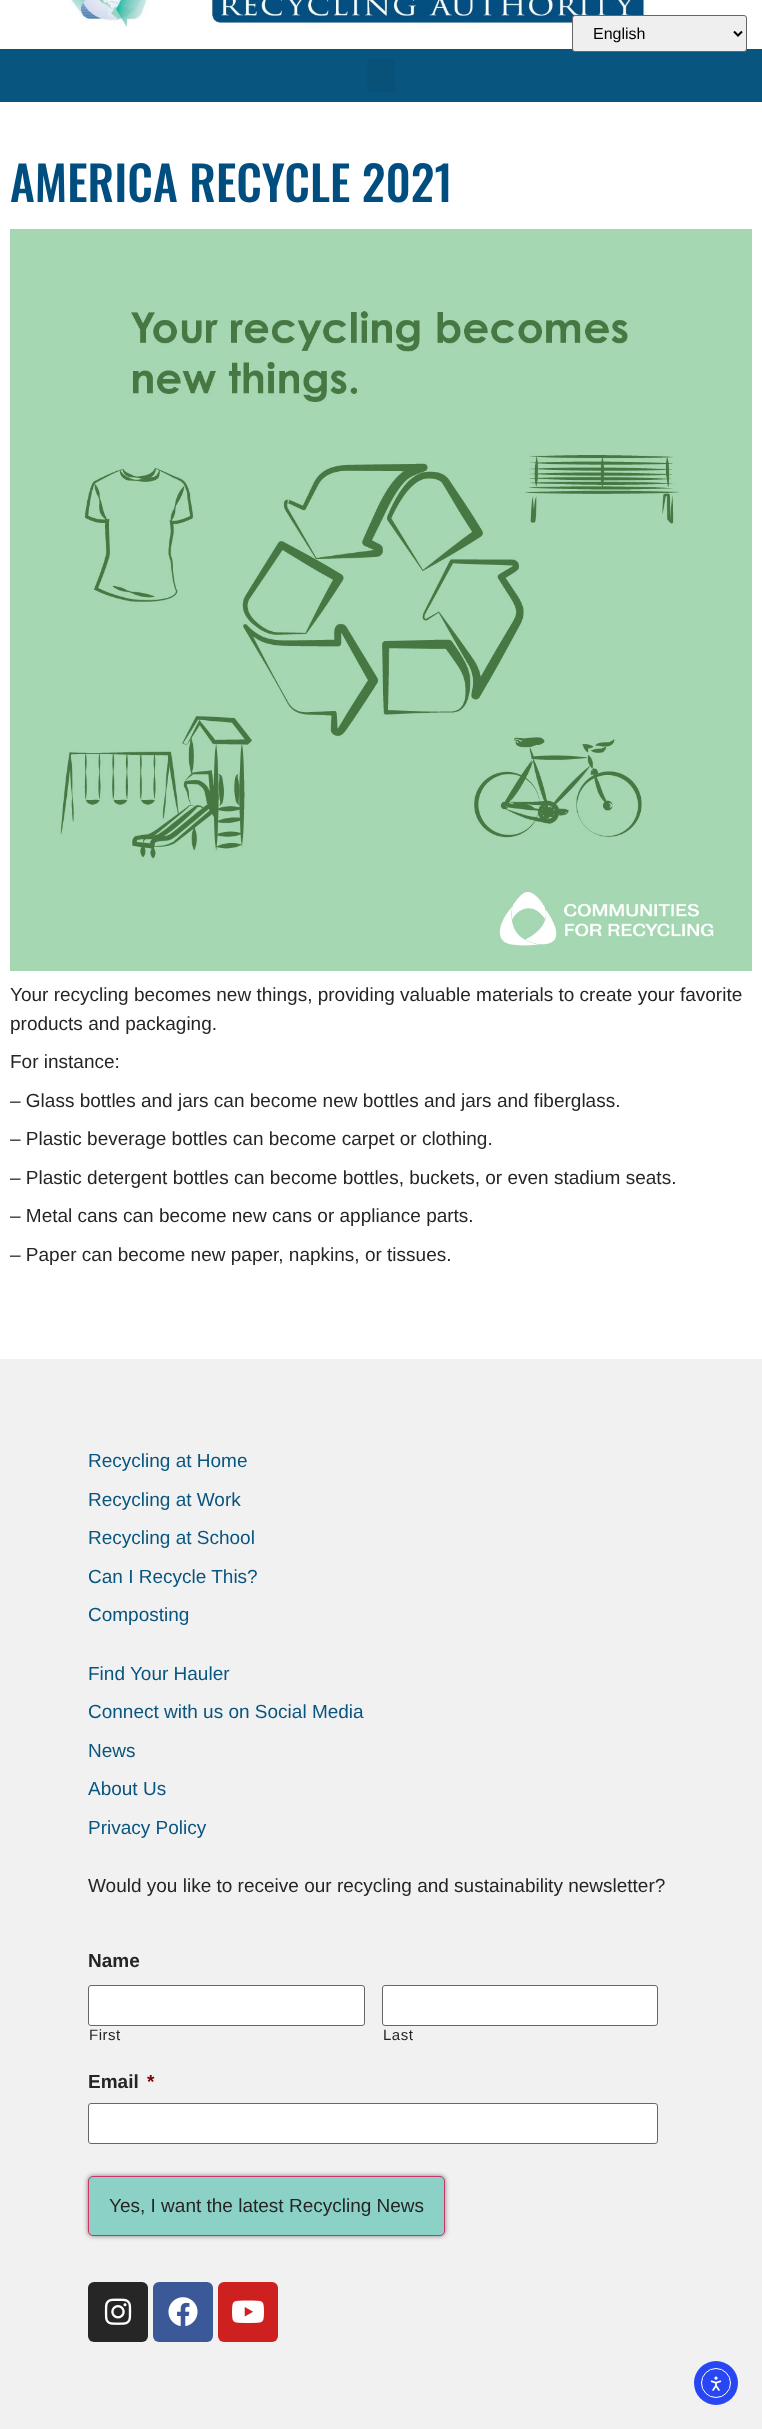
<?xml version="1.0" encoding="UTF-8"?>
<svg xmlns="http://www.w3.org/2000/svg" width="762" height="2429">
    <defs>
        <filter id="blur1" x="-50%" y="-200%" width="200%" height="500%"><feGaussianBlur stdDeviation="2.5"/></filter>
    </defs>
    <rect width="100%" height="100%" fill="#FFFFFF"/>
    <image x="69" y="0" width="579" height="27" href="img_01.png"/>
    <rect x="0" y="49" width="762" height="53" fill="#08557F"/>
    <rect x="572.5" y="15.5" width="174" height="36" rx="2.5" fill="#EFEFEF" stroke="#666666"/>
    <path d="M 734 31.5 L 738 35.5 L 742 31.5" fill="none" stroke="#000000" stroke-width="2"/>
    <text x="593" y="39" font-family="Liberation Sans" font-size="16" fill="#000000">English</text>
    <rect x="367" y="59" width="28" height="33" rx="3" fill="#085179"/>
    <text x="10" y="202" font-family="Oswald" font-size="47.5" font-weight="500" fill="#004E7F">AMERICA RECYCLE 2021</text>
    <image x="10" y="229" width="742" height="742" href="img_02.png"/>
    <text font-family="Liberation Sans" font-size="19" fill="#252525">
        <tspan x="10" y="1001">Your recycling becomes new things, providing valuable materials to create your favorite</tspan>
        <tspan x="10" y="1030">products and packaging.</tspan>
    </text>
    <text x="10" y="1068" font-family="Liberation Sans" font-size="19" fill="#252525">For instance:</text>
    <text x="10" y="1107" font-family="Liberation Sans" font-size="19" fill="#252525">– Glass bottles and jars can become new bottles and jars and fiberglass.</text>
    <text x="10" y="1145" font-family="Liberation Sans" font-size="19" fill="#252525">– Plastic beverage bottles can become carpet or clothing.</text>
    <text x="10" y="1184" font-family="Liberation Sans" font-size="19" fill="#252525">– Plastic detergent bottles can become bottles, buckets, or even stadium seats.</text>
    <text x="10" y="1222" font-family="Liberation Sans" font-size="19" fill="#252525">– Metal cans can become new cans or appliance parts.</text>
    <text x="10" y="1261" font-family="Liberation Sans" font-size="19" fill="#252525">– Paper can become new paper, napkins, or tissues.</text>
    <rect x="0" y="1359" width="762" height="1070" fill="#F2F1F1"/>
    <text x="88" y="1467" font-family="Liberation Sans" font-size="19" fill="#08557F">Recycling at Home</text>
    <text x="88" y="1506" font-family="Liberation Sans" font-size="19" fill="#08557F">Recycling at Work</text>
    <text x="88" y="1544" font-family="Liberation Sans" font-size="19" fill="#08557F">Recycling at School</text>
    <text x="88" y="1583" font-family="Liberation Sans" font-size="19" fill="#08557F">Can I Recycle This?</text>
    <text x="88" y="1621" font-family="Liberation Sans" font-size="19" fill="#08557F">Composting</text>
    <text x="88" y="1680" font-family="Liberation Sans" font-size="19" fill="#08557F">Find Your Hauler</text>
    <text x="88" y="1718" font-family="Liberation Sans" font-size="19" fill="#08557F">Connect with us on Social Media</text>
    <text x="88" y="1757" font-family="Liberation Sans" font-size="19" fill="#08557F">News</text>
    <text x="88" y="1795" font-family="Liberation Sans" font-size="19" fill="#08557F">About Us</text>
    <text x="88" y="1834" font-family="Liberation Sans" font-size="19" fill="#08557F">Privacy Policy</text>
    <text x="88" y="1892" font-family="Liberation Sans" font-size="19" fill="#252525">Would you like to receive our recycling and sustainability newsletter?</text>
    <text x="88" y="1967" font-family="Liberation Sans" font-size="19" font-weight="700" fill="#252525">Name</text>
    <rect x="88.5" y="1985.5" width="276" height="40" rx="2.5" fill="#FFFFFF" stroke="#666666"/>
    <text x="89" y="2040" font-family="Liberation Sans" font-size="15" letter-spacing="0.5" fill="#252525">First</text>
    <rect x="382.5" y="1985.5" width="275" height="40" rx="2.5" fill="#FFFFFF" stroke="#666666"/>
    <text x="383" y="2040" font-family="Liberation Sans" font-size="15" letter-spacing="0.5" fill="#252525">Last</text>
    <text x="88" y="2088" font-family="Liberation Sans" font-size="19" font-weight="700" fill="#252525">Email</text>
    <text x="147" y="2088" font-family="Liberation Sans" font-size="19" font-weight="700" fill="#790000">*</text>
    <rect x="88.5" y="2103.5" width="569" height="40" rx="2.5" fill="#FFFFFF" stroke="#666666"/>
    <rect x="88" y="2176" width="357" height="60" rx="5" fill="#000000" fill-opacity="0.5" filter="url(#blur1)"/>
    <rect x="88.5" y="2176.5" width="356" height="59" rx="4.5" fill="#8BD1C6" stroke="#CC3366"/>
    <text x="109" y="2212" font-family="Liberation Sans" font-size="19" fill="#252525">Yes, I want the latest Recycling News</text>
    <rect x="88" y="2282" width="60" height="60" rx="6" fill="#262626"/>
    <image x="104" y="2298" width="28" height="27" href="img_03.png"/>
    <rect x="153" y="2282" width="60" height="60" rx="6" fill="#3B5998"/>
    <image x="168" y="2297" width="30" height="30" href="img_04.png"/>
    <rect x="218" y="2282" width="60" height="60" rx="6" fill="#CD201F"/>
    <image x="232" y="2300" width="32" height="23" href="img_05.png"/>
    <circle cx="716" cy="2383" r="22" fill="#2847F3"/>
    <circle cx="716" cy="2383" r="14.5" fill="none" stroke="#FFFFFF"/>
    <image x="710" y="2376" width="12" height="15" href="img_06.png"/>
</svg>
